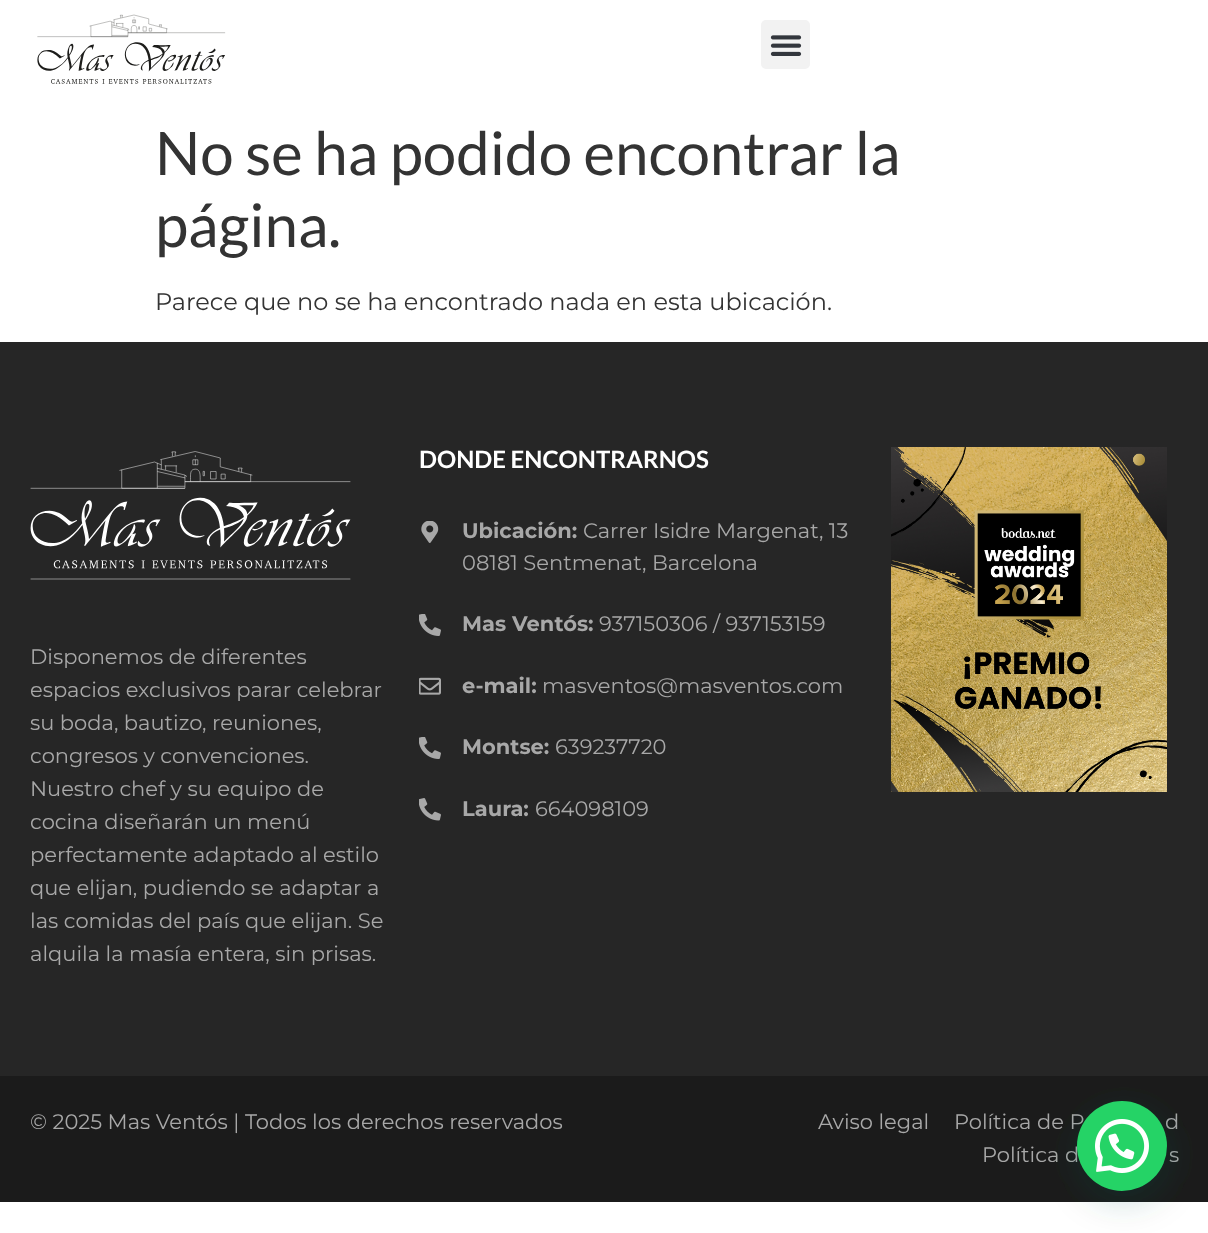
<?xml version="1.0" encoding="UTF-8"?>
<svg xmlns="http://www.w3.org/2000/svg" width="1208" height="1233">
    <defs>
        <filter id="blur1" x="-50%" y="-200%" width="200%" height="500%"><feGaussianBlur stdDeviation="18"/></filter>
    </defs>
    <rect width="100%" height="100%" fill="#FFFFFF"/>
    <image x="37" y="14" width="189" height="70" href="img_01.png"/>
    <rect x="761" y="20" width="49" height="49" rx="5" fill="#F2F2F2"/>
    <image x="770" y="35" width="32" height="21" href="img_02.png"/>
    <text font-family="Lato" font-size="60" fill="#333333">
        <tspan x="155" y="175">No se ha podido encontrar la</tspan>
        <tspan x="155" y="247">página.</tspan>
    </text>
    <text x="155" y="310" font-family="Montserrat" font-size="24" fill="#333333">Parece que no se ha encontrado nada en esta ubicación.</text>
    <rect x="0" y="342" width="1208" height="734" fill="#262626"/>
    <image x="30" y="451" width="321" height="129" href="img_03.png"/>
    <text font-family="Montserrat" font-size="21" fill="#A8A8A8">
        <tspan x="30" y="664">Disponemos de diferentes</tspan>
        <tspan x="30" y="697">espacios exclusivos parar celebrar</tspan>
        <tspan x="30" y="730">su boda, bautizo, reuniones,</tspan>
        <tspan x="30" y="763">congresos y convenciones.</tspan>
        <tspan x="30" y="796">Nuestro chef y su equipo de</tspan>
        <tspan x="30" y="829">cocina diseñarán un menú</tspan>
        <tspan x="30" y="862">perfectamente adaptado al estilo</tspan>
        <tspan x="30" y="895">que elijan, pudiendo se adaptar a</tspan>
        <tspan x="30" y="928">las comidas del país que elijan. Se</tspan>
        <tspan x="30" y="961">alquila la masía entera, sin prisas.</tspan>
    </text>
    <text x="419" y="468" font-family="Lato" font-size="24" font-weight="700" fill="#FFFFFF">DONDE ENCONTRARNOS</text>
    <image x="421" y="521" width="18" height="22" href="img_04.png"/>
    <text x="462" y="538" font-family="Montserrat" font-size="21" font-weight="700" fill="#A8A8A8">Ubicación:</text>
    <text x="583" y="538" font-family="Montserrat" font-size="21" fill="#A8A8A8">Carrer Isidre Margenat, 13</text>
    <text x="462" y="570" font-family="Montserrat" font-size="21" fill="#A8A8A8">08181 Sentmenat, Barcelona</text>
    <image x="419" y="614" width="22" height="22" href="img_05.png"/>
    <text x="462" y="631" font-family="Montserrat" font-size="21" font-weight="700" fill="#A8A8A8">Mas Ventós:</text>
    <text x="599" y="631" font-family="Montserrat" font-size="21" fill="#A8A8A8">937150306 / 937153159</text>
    <image x="419" y="677" width="22" height="18" href="img_06.png"/>
    <text x="462" y="693" font-family="Montserrat" font-size="21" font-weight="700" fill="#A8A8A8">e-mail:</text>
    <text x="542" y="693" font-family="Montserrat" font-size="21" fill="#A8A8A8">masventos@masventos.com</text>
    <image x="419" y="737" width="22" height="22" href="img_05.png"/>
    <text x="462" y="754" font-family="Montserrat" font-size="21" font-weight="700" fill="#A8A8A8">Montse:</text>
    <text x="555" y="754" font-family="Montserrat" font-size="21" fill="#A8A8A8">639237720</text>
    <image x="419" y="798" width="22" height="23" href="img_07.png"/>
    <text x="462" y="816" font-family="Montserrat" font-size="21" font-weight="700" fill="#A8A8A8">Laura:</text>
    <text x="535" y="816" font-family="Montserrat" font-size="21" fill="#A8A8A8">664098109</text>
    <image x="891" y="447" width="276" height="345" href="img_08.png"/>
    <rect x="0" y="1076" width="1208" height="126" fill="#1B1B1B"/>
    <text x="30" y="1129" font-family="Montserrat" font-size="21" fill="#A8A8A8">© 2025 Mas Ventós | Todos los derechos reservados</text>
    <text x="818" y="1129" font-family="Montserrat" font-size="21" fill="#A8A8A8">Aviso legal</text>
    <text x="954" y="1129" font-family="Montserrat" font-size="21" fill="#A8A8A8">Política de P</text>
    <text x="1165" y="1129" font-family="Montserrat" font-size="21" fill="#A8A8A8">d</text>
    <text x="982" y="1162" font-family="Montserrat" font-size="21" fill="#A8A8A8">Política d</text>
    <text x="1169" y="1162" font-family="Montserrat" font-size="21" fill="#A8A8A8">s</text>
    <rect x="1079" y="1110" width="90" height="90" rx="45" fill="#075E54" fill-opacity="0.24" filter="url(#blur1)"/>
    <circle cx="1122" cy="1146" r="45" fill="#25D366"/>
    <image x="1095" y="1119" width="54" height="54" href="img_09.png"/>
</svg>
